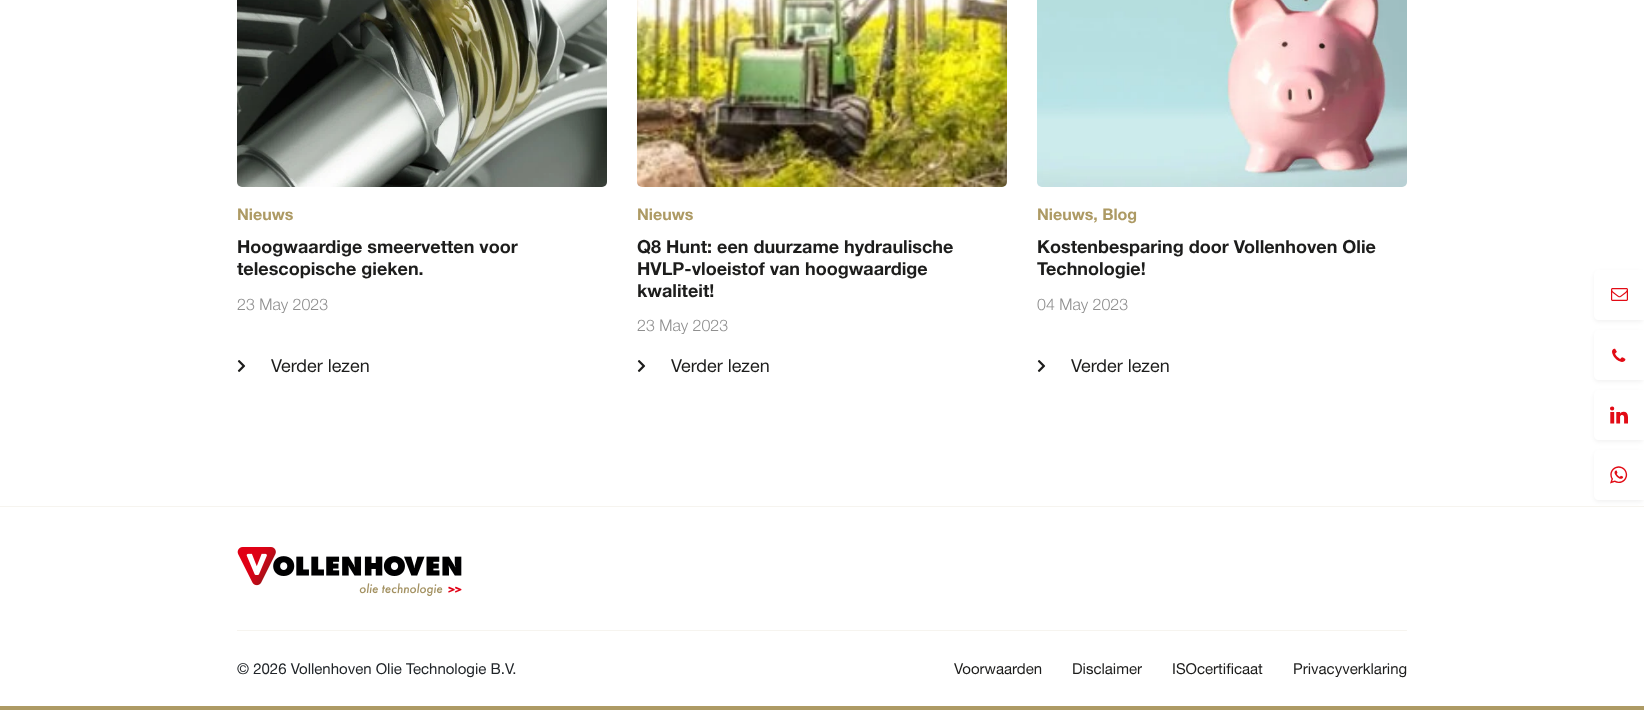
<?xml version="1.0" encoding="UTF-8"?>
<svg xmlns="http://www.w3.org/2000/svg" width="1644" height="710">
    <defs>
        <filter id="blur1" x="-50%" y="-200%" width="200%" height="500%"><feGaussianBlur stdDeviation="2"/></filter>
    </defs>
    <rect width="100%" height="100%" fill="#FFFFFF"/>
    <image x="237" y="0" width="370" height="187" href="img_01.png"/>
    <text x="237" y="220" font-family="Helvetica Neue" font-size="16" font-weight="700" fill="#AD9A64">Nieuws</text>
    <text font-family="Helvetica Neue" font-size="18" font-weight="700" fill="#1D1D1C">
        <tspan x="237" y="253">Hoogwaardige smeervetten voor</tspan>
        <tspan x="237" y="275">telescopische gieken.</tspan>
    </text>
    <text x="237" y="310" font-family="Helvetica Neue" font-size="16" font-weight="300" fill="#8F8F8F">23 May 2023</text>
    <image x="237" y="360" width="9" height="12" href="img_02.png"/>
    <text x="271" y="372" font-family="Helvetica Neue" font-size="18" fill="#1D1D1C">Verder lezen</text>
    <image x="637" y="0" width="370" height="187" href="img_03.png"/>
    <text x="637" y="220" font-family="Helvetica Neue" font-size="16" font-weight="700" fill="#AD9A64">Nieuws</text>
    <text font-family="Helvetica Neue" font-size="18" font-weight="700" fill="#1D1D1C">
        <tspan x="637" y="253">Q8 Hunt: een duurzame hydraulische</tspan>
        <tspan x="637" y="275">HVLP-vloeistof van hoogwaardige</tspan>
        <tspan x="637" y="297">kwaliteit!</tspan>
    </text>
    <text x="637" y="331" font-family="Helvetica Neue" font-size="16" font-weight="300" fill="#8F8F8F">23 May 2023</text>
    <image x="637" y="360" width="9" height="12" href="img_02.png"/>
    <text x="671" y="372" font-family="Helvetica Neue" font-size="18" fill="#1D1D1C">Verder lezen</text>
    <image x="1037" y="0" width="370" height="187" href="img_04.png"/>
    <text x="1037" y="220" font-family="Helvetica Neue" font-size="16" font-weight="700" fill="#AD9A64">Nieuws, Blog</text>
    <text font-family="Helvetica Neue" font-size="18" font-weight="700" fill="#1D1D1C">
        <tspan x="1037" y="253">Kostenbesparing door Vollenhoven Olie</tspan>
        <tspan x="1037" y="275">Technologie!</tspan>
    </text>
    <text x="1037" y="310" font-family="Helvetica Neue" font-size="16" font-weight="300" fill="#8F8F8F">04 May 2023</text>
    <image x="1037" y="360" width="9" height="12" href="img_02.png"/>
    <text x="1071" y="372" font-family="Helvetica Neue" font-size="18" fill="#1D1D1C">Verder lezen</text>
    <rect x="1594" y="272" width="50" height="50" rx="5" fill="#000000" fill-opacity="0.05" filter="url(#blur1)"/>
    <path d="M 1599 270 H 1644 V 320 H 1599 C 1596 320 1594 318 1594 315 V 275 C 1594 272 1596 270 1599 270 Z" fill="#FFFFFF"/>
    <image x="1611" y="288" width="17" height="13" href="img_05.png"/>
    <rect x="1594" y="332" width="50" height="50" rx="5" fill="#000000" fill-opacity="0.05" filter="url(#blur1)"/>
    <path d="M 1599 330 H 1644 V 380 H 1599 C 1596 380 1594 378 1594 375 V 335 C 1594 332 1596 330 1599 330 Z" fill="#FFFFFF"/>
    <image x="1612" y="348" width="14" height="14" href="img_06.png"/>
    <rect x="1594" y="392" width="50" height="50" rx="5" fill="#000000" fill-opacity="0.05" filter="url(#blur1)"/>
    <path d="M 1599 390 H 1644 V 440 H 1599 C 1596 440 1594 438 1594 435 V 395 C 1594 392 1596 390 1599 390 Z" fill="#FFFFFF"/>
    <image x="1610" y="406" width="18" height="18" href="img_07.png"/>
    <rect x="0" y="506" width="1644" height="1" fill="#F6F4EF"/>
    <rect x="1594" y="452" width="50" height="50" rx="5" fill="#000000" fill-opacity="0.05" filter="url(#blur1)"/>
    <path d="M 1599 450 H 1644 V 500 H 1599 C 1596 500 1594 498 1594 495 V 455 C 1594 452 1596 450 1599 450 Z" fill="#FFFFFF"/>
    <image x="1610" y="466" width="18" height="18" href="img_08.png"/>
    <rect x="0" y="706" width="1644" height="4" fill="#AD9A64"/>
    <image x="237" y="547" width="225" height="49" href="img_09.png"/>
    <rect x="237" y="630" width="1170" height="1" fill="#F6F4EF"/>
    <text x="237" y="674" font-family="Helvetica Neue" font-size="15" fill="#212529">© 2026 Vollenhoven Olie Technologie B.V.</text>
    <text x="954" y="674" font-family="Helvetica Neue" font-size="15" fill="#1D1D1C">Voorwaarden</text>
    <text x="1072" y="674" font-family="Helvetica Neue" font-size="15" fill="#1D1D1C">Disclaimer</text>
    <text x="1172" y="674" font-family="Helvetica Neue" font-size="15" fill="#1D1D1C">ISOcertificaat</text>
    <text x="1293" y="674" font-family="Helvetica Neue" font-size="15" fill="#1D1D1C">Privacyverklaring</text>
</svg>
